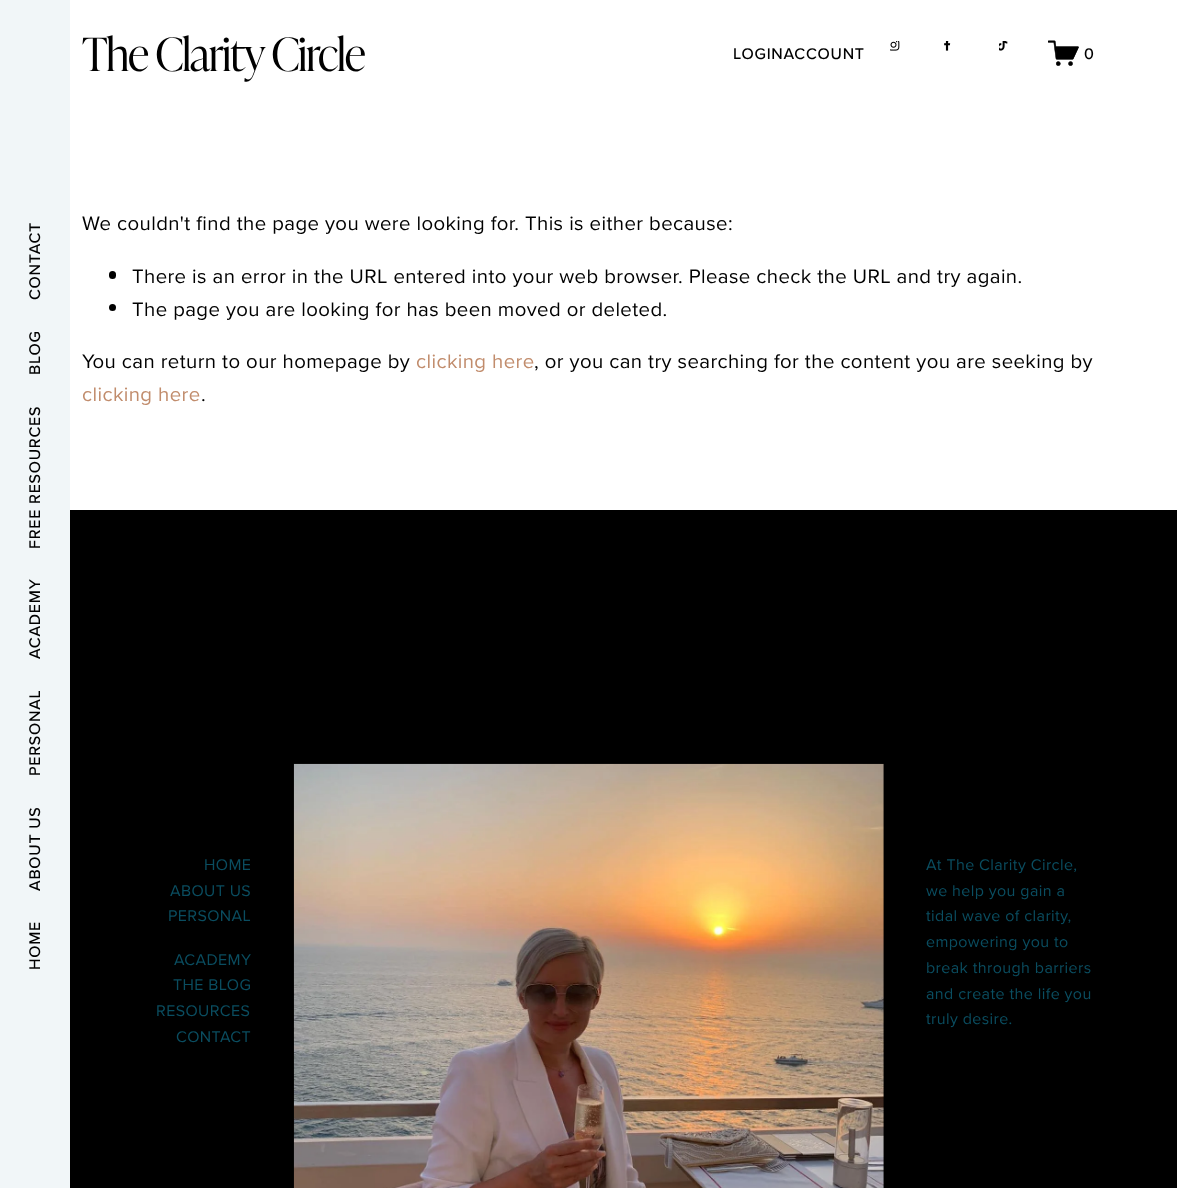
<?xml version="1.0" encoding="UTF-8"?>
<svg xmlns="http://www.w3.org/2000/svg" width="1177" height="1188">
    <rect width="100%" height="100%" fill="#FFFFFF"/>
    <text x="82" y="71" font-family="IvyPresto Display" font-size="45.75" font-weight="300" letter-spacing="-1.4" fill="#000000">The Clarity Circle</text>
    <rect x="0" y="0" width="70" height="1188" fill="#F1F6F8"/>
    <text x="40" y="300" transform="rotate(-90 40 300)" font-family="Proxima Nova" font-size="16" font-weight="500" letter-spacing="0.75" fill="#000000">CONTACT</text>
    <text x="40" y="375" transform="rotate(-90 40 375)" font-family="Proxima Nova" font-size="16" font-weight="500" letter-spacing="0.75" fill="#000000">BLOG</text>
    <text x="40" y="549" transform="rotate(-90 40 549)" font-family="Proxima Nova" font-size="16" font-weight="500" letter-spacing="0.75" fill="#000000">FREE RESOURCES</text>
    <text x="40" y="659" transform="rotate(-90 40 659)" font-family="Proxima Nova" font-size="16" font-weight="500" letter-spacing="0.75" fill="#000000">ACADEMY</text>
    <text x="40" y="776" transform="rotate(-90 40 776)" font-family="Proxima Nova" font-size="16" font-weight="500" letter-spacing="0.75" fill="#000000">PERSONAL</text>
    <text x="40" y="891" transform="rotate(-90 40 891)" font-family="Proxima Nova" font-size="16" font-weight="500" letter-spacing="0.75" fill="#000000">ABOUT US</text>
    <text x="40" y="970" transform="rotate(-90 40 970)" font-family="Proxima Nova" font-size="16" font-weight="500" letter-spacing="0.75" fill="#000000">HOME</text>
    <image x="890" y="41" width="10" height="10" href="img_01.png"/>
    <image x="944" y="41" width="7" height="10" href="img_02.png"/>
    <image x="999" y="41" width="9" height="10" href="img_03.png"/>
    <text x="733" y="59" font-family="Proxima Nova" font-size="16" font-weight="500" letter-spacing="0.75" fill="#000000">LOGINACCOUNT</text>
    <image x="1048" y="40" width="31" height="26" href="img_04.png"/>
    <text x="1084" y="59" font-family="Proxima Nova" font-size="16" font-weight="500" letter-spacing="0.75" fill="#000000">0</text>
    <text x="82" y="230" font-family="Proxima Nova" font-size="20.35" letter-spacing="0.4" fill="#000000">We couldn't find the page you were looking for. This is either because:</text>
    <rect x="109" y="271" width="7" height="8" rx="3.5" fill="#000000"/>
    <text x="132" y="283" font-family="Proxima Nova" font-size="20.35" letter-spacing="0.4" fill="#000000">There is an error in the URL entered into your web browser. Please check the URL and try again.</text>
    <circle cx="112.5" cy="307.5" r="3.5" fill="#000000"/>
    <text x="132" y="316" font-family="Proxima Nova" font-size="20.35" letter-spacing="0.4" fill="#000000">The page you are looking for has been moved or deleted.</text>
    <text x="82" y="368" font-family="Proxima Nova" font-size="20.35" letter-spacing="0.4" fill="#000000">You can return to our homepage by</text>
    <text x="416" y="368" font-family="Proxima Nova" font-size="20.35" letter-spacing="0.4" fill="#C18C6C">clicking here</text>
    <text x="534" y="368" font-family="Proxima Nova" font-size="20.35" letter-spacing="0.4" fill="#000000">, or you can try searching for the content you are seeking by</text>
    <text x="82" y="401" font-family="Proxima Nova" font-size="20.35" letter-spacing="0.4" fill="#C18C6C">clicking here</text>
    <text x="201" y="401" font-family="Proxima Nova" font-size="20.35" letter-spacing="0.4" fill="#000000">.</text>
    <rect x="70" y="510" width="1107" height="678" fill="#000000"/>
    <text x="204" y="870" font-family="Proxima Nova" font-size="16" letter-spacing="0.4" fill="#0A4D60">HOME</text>
    <text x="170" y="896" font-family="Proxima Nova" font-size="16" letter-spacing="0.4" fill="#0A4D60">ABOUT US</text>
    <text x="168" y="921" font-family="Proxima Nova" font-size="16" letter-spacing="0.4" fill="#0A4D60">PERSONAL</text>
    <text x="174" y="965" font-family="Proxima Nova" font-size="16" letter-spacing="0.4" fill="#0A4D60">ACADEMY</text>
    <text x="173" y="990" font-family="Proxima Nova" font-size="16" letter-spacing="0.4" fill="#0A4D60">THE BLOG</text>
    <text x="156" y="1016" font-family="Proxima Nova" font-size="16" letter-spacing="0.4" fill="#0A4D60">RESOURCES</text>
    <text x="176" y="1042" font-family="Proxima Nova" font-size="16" letter-spacing="0.4" fill="#0A4D60">CONTACT</text>
    <image x="293" y="763" width="591" height="425" href="img_05.png"/>
    <text font-family="Proxima Nova" font-size="16" letter-spacing="0.4" fill="#0A4D60">
        <tspan x="926" y="870">At The Clarity Circle,</tspan>
        <tspan x="926" y="896">we help you gain a</tspan>
        <tspan x="926" y="921">tidal wave of clarity,</tspan>
        <tspan x="926" y="947">empowering you to</tspan>
        <tspan x="926" y="973">break through barriers</tspan>
        <tspan x="926" y="999">and create the life you</tspan>
        <tspan x="926" y="1024">truly desire.</tspan>
    </text>
</svg>
